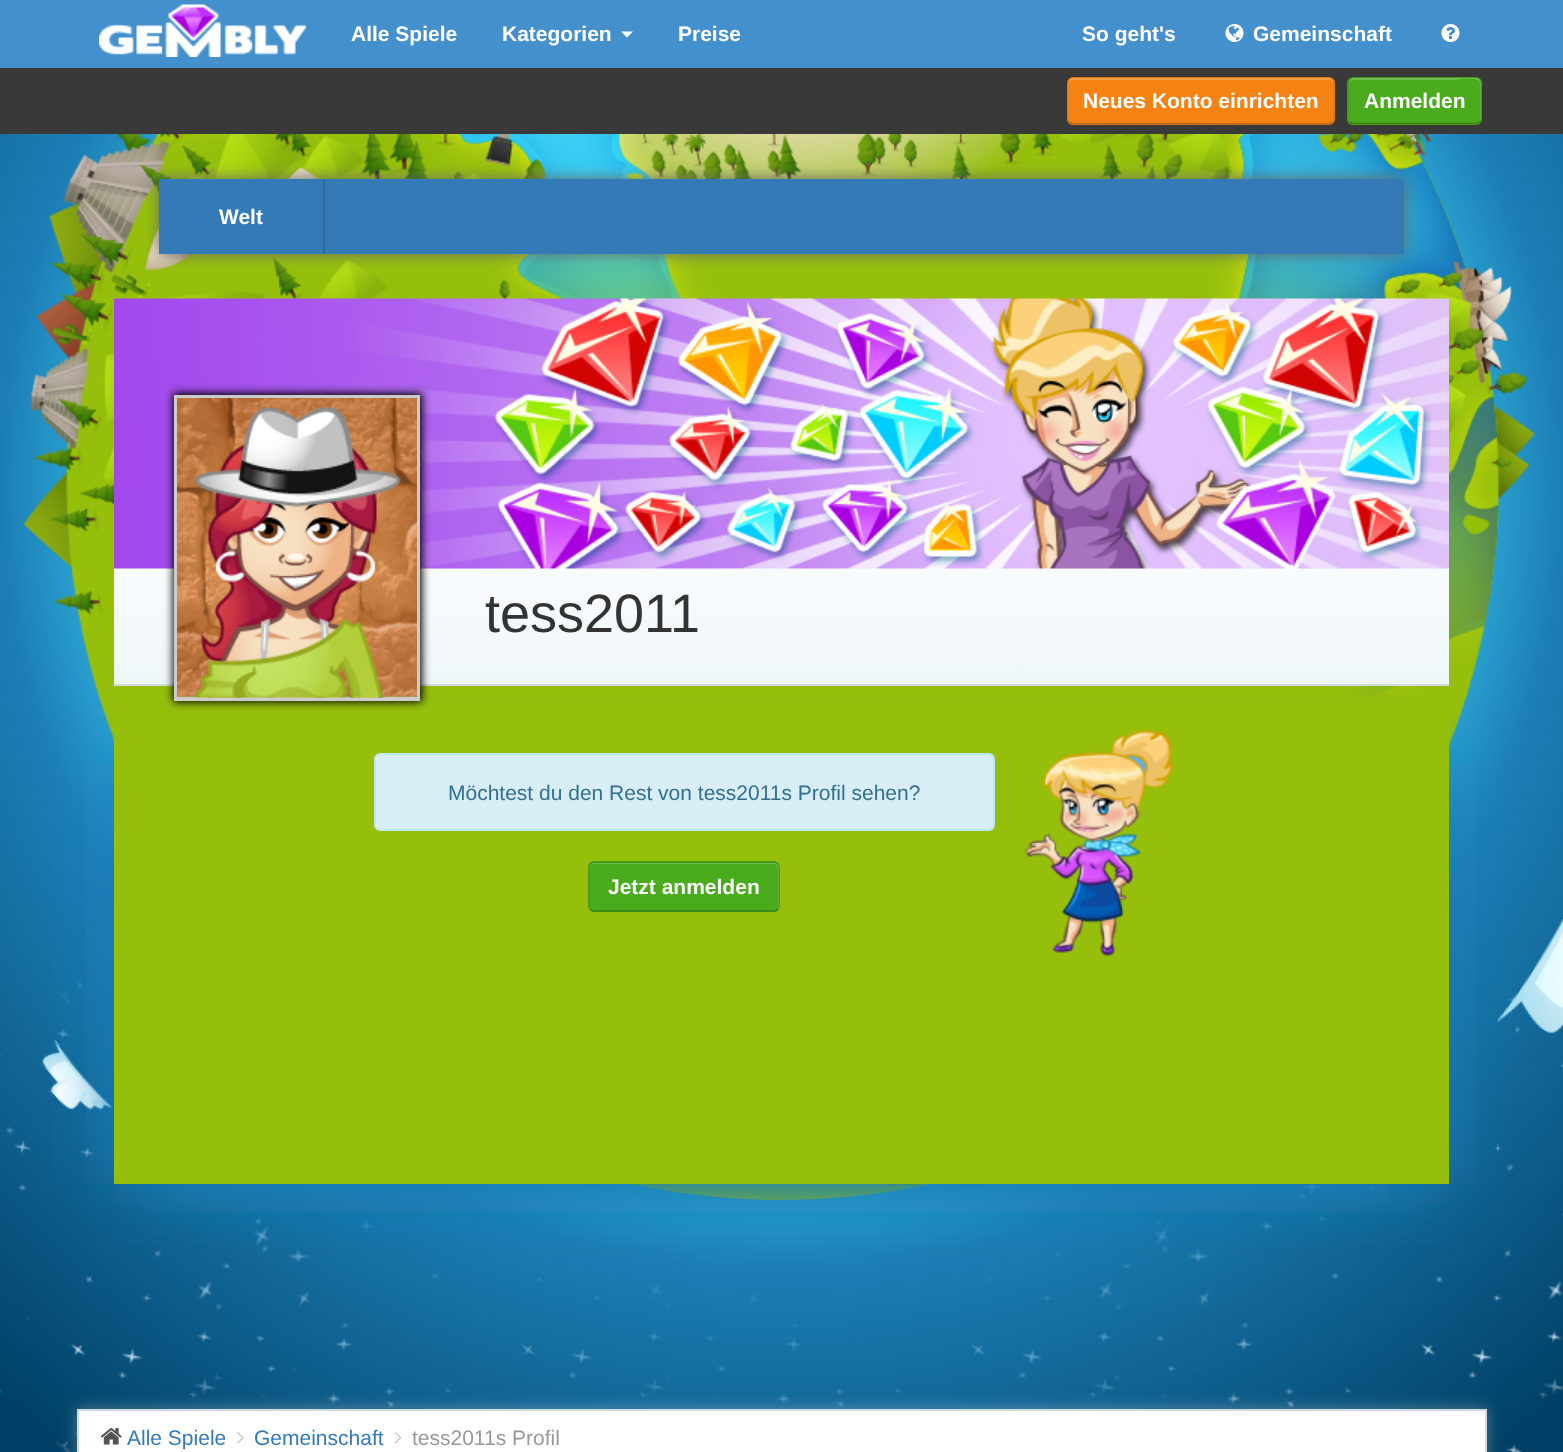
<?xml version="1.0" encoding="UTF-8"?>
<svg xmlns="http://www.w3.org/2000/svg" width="1563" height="1452">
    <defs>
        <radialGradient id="g1" gradientUnits="userSpaceOnUse" cx="782" cy="488" r="1200"><stop offset="0.3" stop-color="#D4F1F7"/><stop offset="0.5" stop-color="#3ED4F7"/><stop offset="0.65" stop-color="#1C7EB5"/><stop offset="1" stop-color="#1C7EB5" stop-opacity="0"/></radialGradient>
        <filter id="blur1" x="-50%" y="-200%" width="200%" height="500%"><feGaussianBlur stdDeviation="7.5"/></filter>
        <filter id="blur2" x="-50%" y="-200%" width="200%" height="500%"><feGaussianBlur stdDeviation="30"/></filter>
        <linearGradient id="g2" gradientUnits="userSpaceOnUse" x1="782" y1="298" x2="782" y2="684"><stop offset="0" stop-color="#F0F7FA"/><stop offset="0.5" stop-color="#FFFFFF"/><stop offset="1" stop-color="#EFF6F9"/></linearGradient>
        <filter id="blur3" x="-50%" y="-200%" width="200%" height="500%"><feGaussianBlur stdDeviation="4"/></filter>
    </defs>
    <rect width="100%" height="100%" fill="#004066"/>
    <image x="0" y="981" width="1563" height="471" href="img_10.png"/>
    <rect x="0" y="134" width="1563" height="1305" fill="url(#g1)"/>
    <circle cx="781.5" cy="487.5" r="712.5" fill="#96BF0C"/>
    <rect x="0" y="0" width="1563" height="68" fill="#4490CC"/>
    <image x="99" y="4" width="207" height="53" href="img_01.png"/>
    <text x="351" y="41" font-family="Liberation Sans" font-size="21" font-weight="700" fill="#FFFFFF">Alle Spiele</text>
    <text x="502" y="41" font-family="Liberation Sans" font-size="21" font-weight="700" fill="#FFFFFF">Kategorien</text>
    <path d="M 621 31.5 H 633 L 627 37.5 Z" fill="#FFFFFF"/>
    <text x="678" y="41" font-family="Liberation Sans" font-size="21" font-weight="700" fill="#FFFFFF">Preise</text>
    <text x="1082" y="41" font-family="Liberation Sans" font-size="21" font-weight="700" fill="#FFFFFF">So geht's</text>
    <image x="1225" y="24" width="19" height="18" href="img_02.png"/>
    <text x="1253" y="41" font-family="Liberation Sans" font-size="21" font-weight="700" fill="#FFFFFF">Gemeinschaft</text>
    <image x="1441" y="24" width="19" height="18" href="img_03.png"/>
    <rect x="0" y="68" width="1563" height="66" fill="#39393A"/>
    <rect x="1067" y="77" width="268" height="48" rx="6" fill="#F58313"/>
    <path d="M 1072 80 H 1329 C 1331 80 1334 82 1334 84 C 1334 81 1332 78 1329 78 H 1073 C 1070 78 1068 81 1068 84 C 1068 82 1070 80 1072 80 Z" fill="#F79C42"/>
    <path d="M 1332.5 122 C 1331.5 123 1330.5 123.5 1329 124 L 1072 123.5 L 1069 122" fill="none" stroke="#000000" stroke-opacity="0.25" stroke-width="1.5"/>
    <path d="M 1069 122 C 1068 121 1067 120 1067 118.5 V 82.5 C 1067 81 1068 80 1069 79 C 1070 78 1071 77 1072.5 77 H 1329 C 1330.5 77 1331.5 78 1332.5 79 C 1333.5 80 1334 81 1334 82.5 V 118.5 C 1334 120 1333.5 121 1332.5 122" fill="none" stroke="#000000" stroke-opacity="0.1" stroke-width="1.5"/>
    <text x="1083" y="108" font-family="Liberation Sans" font-size="21" font-weight="700" fill="#FFFFFF">Neues Konto einrichten</text>
    <rect x="1347" y="77" width="135" height="48" rx="6" fill="#4AAB1D"/>
    <path d="M 1353 80 H 1456 C 1460 80 1478 76 1480 83 V 121 C 1481 120 1481 119 1481 118 V 83 C 1481 80 1479 78 1476 78 H 1354 C 1352 78 1350 80 1349 82 C 1350 81 1352 80 1353 80 Z" fill="#6EBC4A"/>
    <path d="M 1479.5 122 L 1476.5 123.5 H 1352.5 L 1349.5 122" fill="none" stroke="#388016" stroke-width="1.5"/>
    <path d="M 1349.5 122 C 1346 119 1348 110 1348 106.5 V 88.5 C 1348 84.5 1347 77.5 1353 77 H 1455.5 C 1485 77 1481 73 1481 100.5 V 112.5 C 1481 115.5 1482 120 1479.5 122" fill="none" stroke="#000000" stroke-opacity="0.1" stroke-width="1.5"/>
    <text x="1364" y="108" font-family="Liberation Sans" font-size="21" font-weight="700" fill="#FFFFFF">Anmelden</text>
    <image x="23" y="134" width="1512" height="1065" href="img_04.png"/>
    <image x="1497" y="918" width="66" height="116" href="img_05.png"/>
    <image x="41" y="1040" width="71" height="70" href="img_06.png"/>
    <rect x="159" y="179" width="1245" height="75" fill="#676767" filter="url(#blur1)"/>
    <rect x="159" y="179" width="1245" height="75" fill="#337AB7"/>
    <rect x="323" y="179" width="2" height="75" fill="#2F67A0"/>
    <text x="219" y="224" font-family="Liberation Sans" font-size="21" font-weight="700" fill="#FFFFFF">Welt</text>
    <rect x="174" y="764" width="1275" height="420" fill="#1C7EB5" filter="url(#blur2)"/>
    <rect x="114" y="764" width="1275" height="420" fill="#1C7EB5" filter="url(#blur2)"/>
    <rect x="114" y="568" width="1335" height="116" fill="url(#g2)"/>
    <rect x="114" y="684" width="1335" height="2" fill="#D1DBDF"/>
    <image x="114" y="298" width="1335" height="271" href="img_07.png"/>
    <rect x="114" y="704" width="1335" height="480" fill="#96BF0C"/>
    <rect x="173" y="393" width="249" height="309" fill="#000000" filter="url(#blur3)"/>
    <rect x="177" y="697" width="240" height="1" fill="#FFFFFF"/>
    <image x="177" y="398" width="240" height="300" href="img_08.png"/>
    <rect x="175.5" y="396.5" width="243" height="303" fill="none" stroke="#CCCCCC" stroke-width="3"/>
    <text x="485" y="632" font-family="Liberation Sans" font-size="54" fill="#333333">tess2011</text>
    <image x="1024" y="730" width="150" height="226" href="img_09.png"/>
    <rect x="375" y="754" width="619" height="76" rx="5" fill="#D9EDF7" stroke="#BCE8F1" stroke-width="2"/>
    <text x="448" y="800" font-family="Liberation Sans" font-size="21" fill="#31708F">Möchtest du den Rest von tess2011s Profil sehen?</text>
    <rect x="588" y="861" width="192" height="51" rx="6" fill="#4AAB1D"/>
    <path d="M 594 864 H 774 C 776 864 778 866 778 868 V 909 C 779 908 779 907 779 906 V 868 C 779 865 777 863 774 863 H 595 C 592 863 590 865 590 868 C 590 866 592 864 594 864 Z" fill="#6EBC4A"/>
    <path d="M 777.5 909.5 C 776.5 910.5 775.5 911 774 911 H 594 C 592.5 911 591.5 910.5 590.5 909.5" fill="none" stroke="#000000" stroke-opacity="0.25" stroke-width="1.5"/>
    <path d="M 590.5 909.5 C 589.5 908.5 589 907.5 589 906 V 867 C 589 865.5 589.5 864.5 590.5 863.5 C 591.5 862.5 592.5 862 594 862 H 774 C 775.5 862 776.5 862.5 777.5 863.5 C 778.5 864.5 779 865.5 779 867 V 906 C 779 907.5 778.5 908.5 777.5 909.5" fill="none" stroke="#000000" stroke-opacity="0.1" stroke-width="1.5"/>
    <text x="608" y="894" font-family="Liberation Sans" font-size="21" font-weight="700" fill="#FFFFFF">Jetzt anmelden</text>
    <rect x="77" y="1409" width="1410" height="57" fill="#C8C8C8" fill-opacity="0.4" filter="url(#blur1)"/>
    <rect x="78" y="1410" width="1408" height="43" fill="#FFFFFF" stroke="#D1DBDF" stroke-width="2"/>
    <image x="100" y="1428" width="22" height="17" href="img_11.png"/>
    <text x="127" y="1445" font-family="Liberation Sans" font-size="21" fill="#337AB7">Alle Spiele</text>
    <image x="237" y="1432" width="7" height="12" href="img_12.png"/>
    <text x="254" y="1445" font-family="Liberation Sans" font-size="21" fill="#337AB7">Gemeinschaft</text>
    <image x="394" y="1432" width="8" height="12" href="img_13.png"/>
    <text x="412" y="1445" font-family="Liberation Sans" font-size="21" fill="#999999">tess2011s Profil</text>
</svg>
